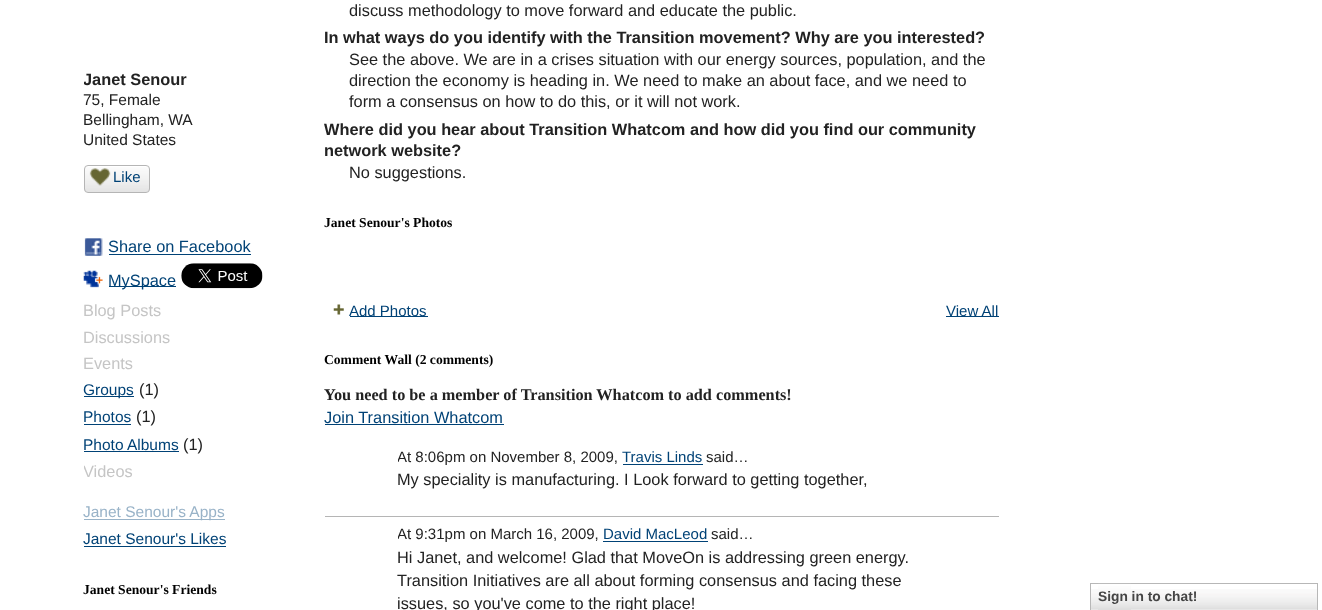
<?xml version="1.0" encoding="UTF-8"?>
<svg xmlns="http://www.w3.org/2000/svg" width="1322" height="610">
    <defs>
        <clipPath id="clip1"><rect x="84" y="69" width="216" height="21"/></clipPath>
        <clipPath id="clip2"><rect x="84" y="463" width="216" height="18"/></clipPath>
        <clipPath id="clip3"><rect x="398" y="449" width="557" height="19"/></clipPath>
        <clipPath id="clip4"><rect x="398" y="526" width="557" height="19"/></clipPath>
    </defs>
    <rect width="100%" height="100%" fill="#FFFFFF"/>
    <g clip-path="url(#clip1)">
        <text x="83" y="85" font-family="Liberation Sans" font-size="16.35" font-weight="700" fill="#222222">Janet Senour</text>
    </g>
    <text font-family="Liberation Sans" font-size="15.5" fill="#222222">
        <tspan x="83" y="105">75, Female</tspan>
        <tspan x="83" y="125">Bellingham, WA</tspan>
        <tspan x="83" y="145">United States</tspan>
    </text>
    <image x="84" y="167" width="66" height="25" href="img_01.png"/>
    <rect x="84.5" y="165.5" width="65" height="27" rx="3.5" fill="none" stroke="#B5B5B5"/>
    <image x="89" y="168" width="22" height="18" href="img_02.png"/>
    <text x="113" y="182" font-family="Liberation Sans" font-size="15" fill="#004276">Like</text>
    <image x="84" y="238" width="19" height="18" href="img_03.png"/>
    <text x="108" y="252" font-family="Liberation Sans" font-size="16.35" fill="#004276">Share on Facebook</text>
    <rect x="109" y="254" width="142" height="1" fill="#004276"/>
    <image x="83" y="270" width="20" height="18" href="img_04.png"/>
    <rect x="109" y="286" width="67" height="1" fill="#004276"/>
    <text x="108" y="286" font-family="Liberation Sans" font-size="16.35" fill="#004276">MySpace</text>
    <image x="181" y="263" width="82" height="26" href="img_05.png"/>
    <text font-family="Liberation Sans" font-size="16.35" fill="#C5C5C5">
        <tspan x="83" y="316">Blog Posts</tspan>
        <tspan x="83" y="343">Discussions</tspan>
        <tspan x="83" y="369">Events</tspan>
    </text>
    <rect x="84" y="396" width="50" height="1" fill="#004276"/>
    <text x="83" y="395" font-family="Liberation Sans" font-size="15.5" fill="#004276">Groups</text>
    <text x="139" y="395" font-family="Liberation Sans" font-size="16.35" fill="#222222">(1)</text>
    <text x="83" y="422" font-family="Liberation Sans" font-size="15.5" fill="#004276">Photos</text>
    <rect x="84" y="424" width="47" height="1" fill="#004276"/>
    <text x="136" y="422" font-family="Liberation Sans" font-size="16.35" fill="#222222">(1)</text>
    <text x="83" y="450" font-family="Liberation Sans" font-size="15.5" fill="#004276">Photo Albums</text>
    <rect x="84" y="451" width="95" height="1" fill="#004276"/>
    <text x="183" y="450" font-family="Liberation Sans" font-size="16.35" fill="#222222">(1)</text>
    <g clip-path="url(#clip2)">
        <text x="83" y="477" font-family="Liberation Sans" font-size="16.35" fill="#C5C5C5">Videos</text>
    </g>
    <rect x="84" y="519" width="141" height="1" fill="#99B3C8"/>
    <text x="83" y="517" font-family="Liberation Sans" font-size="15.5" fill="#99B3C8">Janet Senour's Apps</text>
    <text x="83" y="544" font-family="Liberation Sans" font-size="15.5" fill="#004276">Janet Senour's Likes</text>
    <rect x="84" y="546" width="142" height="1" fill="#004276"/>
    <text x="83" y="594" font-family="Liberation Serif" font-size="13.6" font-weight="700" fill="#000000">Janet Senour's Friends</text>
    <text x="349" y="16" font-family="Liberation Sans" font-size="16.35" fill="#222222">discuss methodology to move forward and educate the public.</text>
    <text x="324" y="43" font-family="Liberation Sans" font-size="16.35" font-weight="700" fill="#222222">In what ways do you identify with the Transition movement? Why are you interested?</text>
    <text font-family="Liberation Sans" font-size="16.35" fill="#222222">
        <tspan x="349" y="65">See the above. We are in a crises situation with our energy sources, population, and the</tspan>
        <tspan x="349" y="86">direction the economy is heading in. We need to make an about face, and we need to</tspan>
        <tspan x="349" y="107">form a consensus on how to do this, or it will not work.</tspan>
    </text>
    <text font-family="Liberation Sans" font-size="16.35" font-weight="700" fill="#222222">
        <tspan x="324" y="135">Where did you hear about Transition Whatcom and how did you find our community</tspan>
        <tspan x="324" y="156">network website?</tspan>
    </text>
    <text x="349" y="178" font-family="Liberation Sans" font-size="16.35" fill="#222222">No suggestions.</text>
    <text x="324" y="227" font-family="Liberation Serif" font-size="13.6" font-weight="700" fill="#000000">Janet Senour's Photos</text>
    <image x="333" y="304" width="11" height="11" href="img_06.png"/>
    <rect x="350" y="316" width="78" height="1" fill="#004276"/>
    <text x="349" y="316" font-family="Liberation Sans" font-size="15" fill="#004276">Add Photos</text>
    <rect x="946" y="316" width="53" height="1" fill="#004276"/>
    <text x="946" y="316" font-family="Liberation Sans" font-size="15" fill="#004276">View All</text>
    <text x="324" y="364" font-family="Liberation Serif" font-size="13.6" font-weight="700" fill="#000000">Comment Wall (2 comments)</text>
    <text x="324" y="400" font-family="Liberation Serif" font-size="16.25" font-weight="700" fill="#222222">You need to be a member of Transition Whatcom to add comments!</text>
    <text x="324" y="423" font-family="Liberation Sans" font-size="16.35" fill="#004276">Join Transition Whatcom</text>
    <rect x="325" y="424" width="179" height="1" fill="#004276"/>
    <rect x="325" y="516" width="674" height="1" fill="#B5B5B5"/>
    <g clip-path="url(#clip3)">
        <text x="397" y="462" font-family="Liberation Sans" font-size="15" fill="#222222">At 8:06pm on November 8, 2009,</text>
    </g>
    <text x="622" y="462" font-family="Liberation Sans" font-size="15" fill="#004276">Travis Linds</text>
    <rect x="623" y="464" width="80" height="1" fill="#004276"/>
    <text x="706" y="462" font-family="Liberation Sans" font-size="15" fill="#222222">said…</text>
    <text x="397" y="485" font-family="Liberation Sans" font-size="16.35" fill="#222222">My speciality is manufacturing. I Look forward to getting together,</text>
    <g clip-path="url(#clip4)">
        <text x="397" y="539" font-family="Liberation Sans" font-size="15" fill="#222222">At 9:31pm on March 16, 2009,</text>
    </g>
    <text x="603" y="539" font-family="Liberation Sans" font-size="15" fill="#004276">David MacLeod</text>
    <rect x="603" y="541" width="105" height="1" fill="#004276"/>
    <text x="711" y="539" font-family="Liberation Sans" font-size="15" fill="#222222">said…</text>
    <text font-family="Liberation Sans" font-size="16.35" fill="#222222">
        <tspan x="397" y="563">Hi Janet, and welcome! Glad that MoveOn is addressing green energy.</tspan>
        <tspan x="397" y="586">Transition Initiatives are all about forming consensus and facing these</tspan>
        <tspan x="397" y="609">issues, so you've come to the right place!</tspan>
    </text>
    <image x="1091" y="589" width="226" height="21" href="img_07.png"/>
    <rect x="1090.5" y="583.5" width="227" height="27" fill="none" stroke="#B7B7B7"/>
    <image x="1098" y="583" width="33" height="27" href="img_08.png"/>
    <text x="1098" y="601" font-family="Liberation Sans" font-size="13.75" font-weight="700" fill="#454545">Sign in to chat!</text>
</svg>
